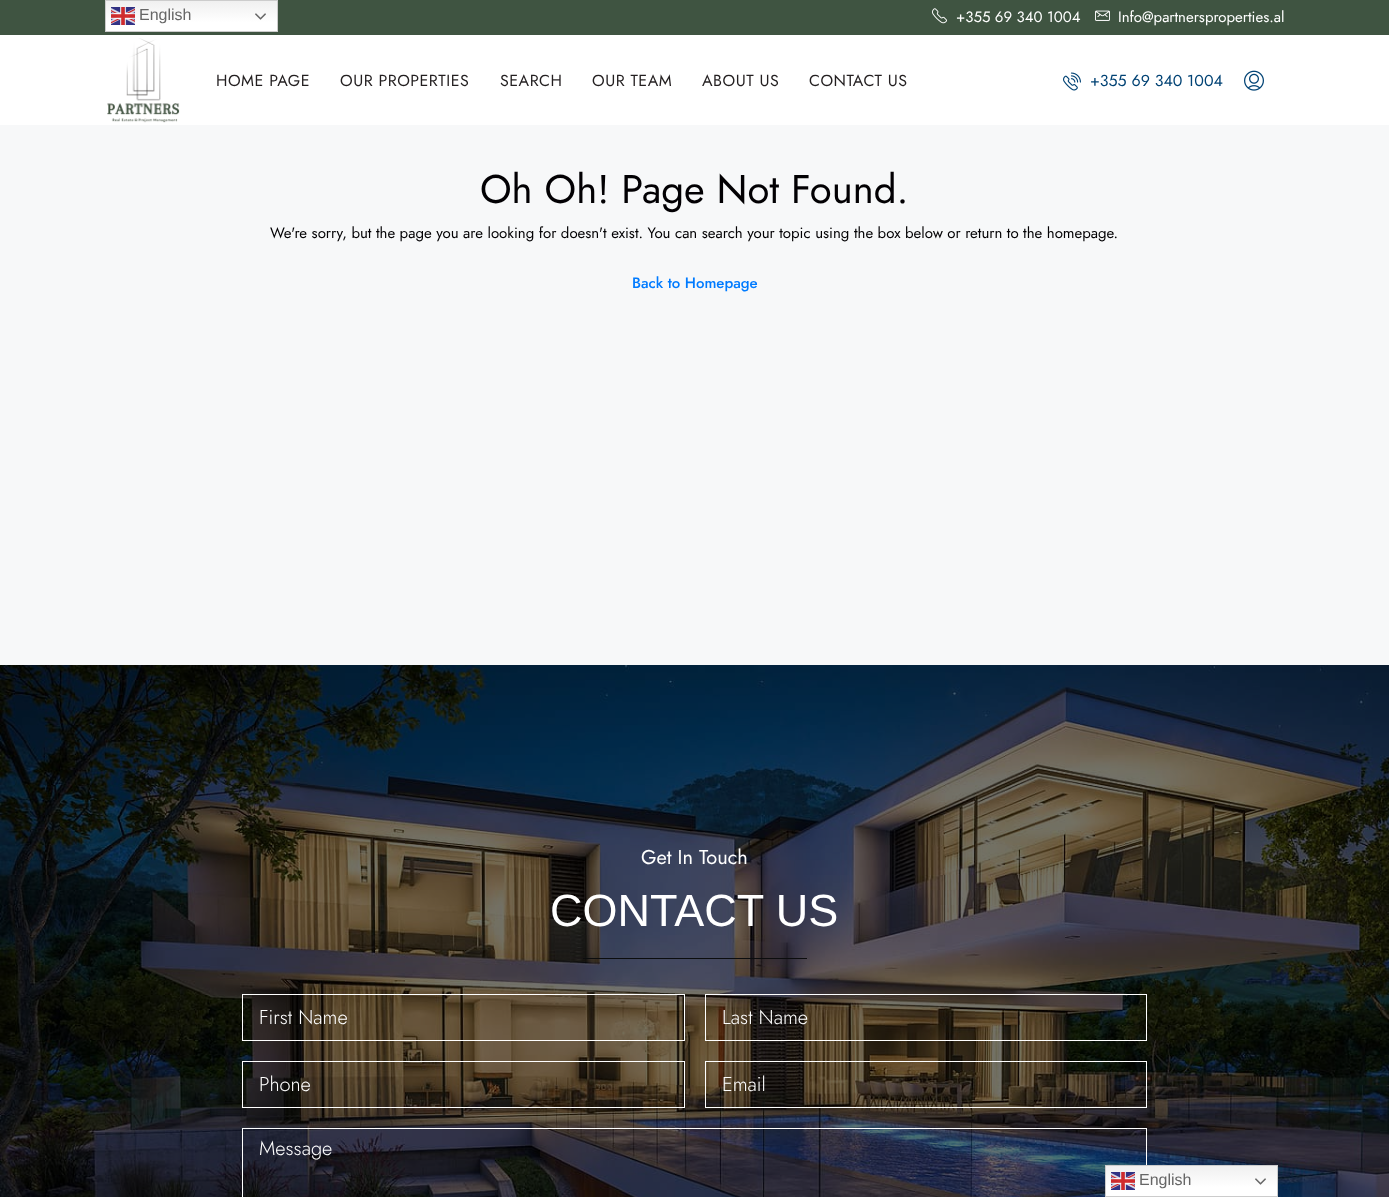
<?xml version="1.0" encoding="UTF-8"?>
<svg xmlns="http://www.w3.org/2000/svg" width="1389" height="1197">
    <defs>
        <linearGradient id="g1" gradientUnits="userSpaceOnUse" x1="192" y1="0" x2="192" y2="32"><stop offset="0" stop-color="#EFEFEF"/><stop offset="0.7" stop-color="#FFFFFF"/></linearGradient>
        <linearGradient id="g2" gradientUnits="userSpaceOnUse" x1="1192" y1="1165" x2="1192" y2="1197"><stop offset="0" stop-color="#EFEFEF"/><stop offset="0.7" stop-color="#FFFFFF"/></linearGradient>
    </defs>
    <rect width="100%" height="100%" fill="#F7F8F9"/>
    <rect x="0" y="0" width="1389" height="35" fill="#3F5441"/>
    <rect x="106" y="1" width="171" height="30" fill="url(#g1)"/>
    <rect x="105.5" y="0.5" width="172" height="31" fill="none" stroke="#CCCCCC"/>
    <image x="111" y="7" width="24" height="18" href="img_01.png"/>
    <text x="139" y="20" font-family="Liberation Sans" font-size="16" fill="#666666">English</text>
    <image x="255" y="13" width="11" height="7" href="img_02.png"/>
    <image x="932" y="8" width="15" height="16" href="img_03.png"/>
    <text x="956" y="22" font-family="Jost" font-size="15" fill="#FFFFFF">+355 69 340 1004</text>
    <image x="1095" y="10" width="15" height="11" href="img_04.png"/>
    <text x="1118" y="22" font-family="Jost" font-size="15" fill="#FFFFFF">Info@partnersproperties.al</text>
    <rect x="0" y="35" width="1389" height="90" fill="#FFFFFF"/>
    <image x="107" y="38" width="73" height="85" href="img_05.png"/>
    <text x="216" y="86" font-family="Jost" font-size="16" letter-spacing="0.5" fill="#231F20">HOME PAGE</text>
    <text x="340" y="86" font-family="Jost" font-size="16" letter-spacing="0.5" fill="#231F20">OUR PROPERTIES</text>
    <text x="500" y="86" font-family="Jost" font-size="16" letter-spacing="0.5" fill="#231F20">SEARCH</text>
    <text x="592" y="86" font-family="Jost" font-size="16" letter-spacing="0.5" fill="#231F20">OUR TEAM</text>
    <text x="702" y="86" font-family="Jost" font-size="16" letter-spacing="0.5" fill="#231F20">ABOUT US</text>
    <text x="809" y="86" font-family="Jost" font-size="16" letter-spacing="0.5" fill="#231F20">CONTACT US</text>
    <image x="1063" y="72" width="18" height="19" href="img_06.png"/>
    <text x="1090" y="86" font-family="Jost" font-size="16" fill="#004274">+355 69 340 1004</text>
    <image x="1244" y="70" width="20" height="21" href="img_07.png"/>
    <text x="480" y="203" font-family="Jost" font-size="40" fill="#020003">Oh Oh! Page Not Found.</text>
    <text x="270" y="238" font-family="Jost" font-size="15" fill="#020003">We're sorry, but the page you are looking for doesn't exist. You can search your topic using the box below or return to the homepage.</text>
    <text x="632" y="288" font-family="Jost" font-size="15" font-weight="500" fill="#007BFF">Back to Homepage</text>
    <image x="0" y="665" width="1389" height="532" href="img_08.png"/>
    <text x="641" y="864" font-family="Jost" font-size="20" fill="#FFFFFF">Get In Touch</text>
    <text x="550" y="926" font-family="Liberation Sans" font-size="45" fill="#FFFFFF">CONTACT US</text>
    <rect x="583" y="958" width="224" height="1" fill="#0C0D0E"/>
    <rect x="242.5" y="994.5" width="442" height="46" fill="none" stroke="#FFFFFF"/>
    <text x="259" y="1024" font-family="Jost" font-size="20" font-weight="300" fill="#FFFFFF">First Name</text>
    <rect x="705.5" y="994.5" width="441" height="46" fill="none" stroke="#FFFFFF"/>
    <text x="722" y="1024" font-family="Jost" font-size="20" font-weight="300" fill="#FFFFFF">Last Name</text>
    <rect x="242.5" y="1061.5" width="442" height="46" fill="none" stroke="#FFFFFF"/>
    <text x="259" y="1091" font-family="Jost" font-size="20" font-weight="300" fill="#FFFFFF">Phone</text>
    <rect x="705.5" y="1061.5" width="441" height="46" fill="none" stroke="#FFFFFF"/>
    <text x="722" y="1091" font-family="Jost" font-size="20" font-weight="300" fill="#FFFFFF">Email</text>
    <rect x="242.5" y="1128.5" width="904" height="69" fill="none" stroke="#FFFFFF"/>
    <text x="259" y="1155" font-family="Jost" font-size="20" font-weight="300" fill="#FFFFFF">Message</text>
    <rect x="1106" y="1166" width="171" height="30" fill="url(#g2)"/>
    <rect x="1105.5" y="1165.5" width="172" height="31" fill="none" stroke="#CCCCCC"/>
    <image x="1111" y="1172" width="24" height="18" href="img_01.png"/>
    <text x="1139" y="1185" font-family="Liberation Sans" font-size="16" fill="#666666">English</text>
    <image x="1255" y="1178" width="11" height="7" href="img_02.png"/>
</svg>
